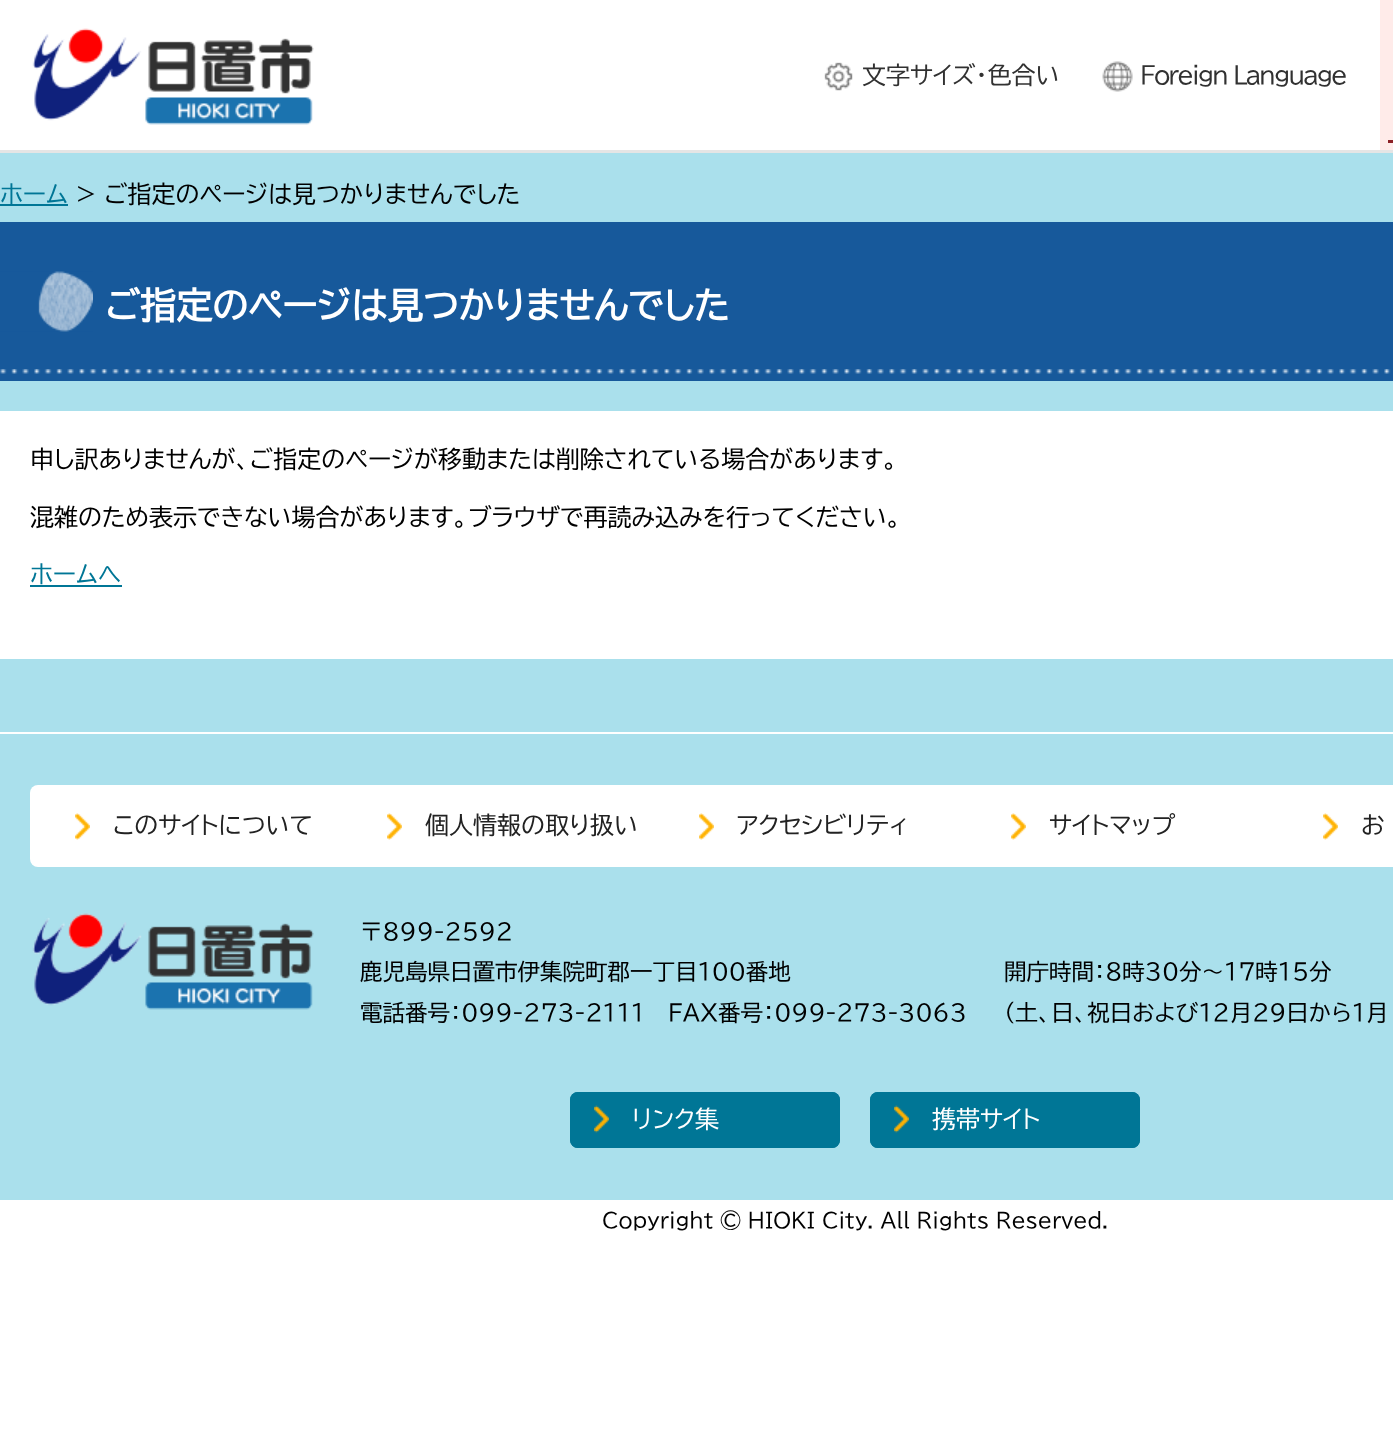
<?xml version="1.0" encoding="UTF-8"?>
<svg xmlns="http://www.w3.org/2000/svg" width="1393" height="1449">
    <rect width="100%" height="100%" fill="#FFFFFF"/>
    <rect x="0" y="153" width="1393" height="1047" fill="#AAE0EC"/>
    <rect x="0" y="150" width="1393" height="3" fill="#E5E5E5"/>
    <image x="32" y="28" width="282" height="97" href="img_01.png"/>
    <image x="824" y="62" width="29" height="29" href="img_02.png"/>
    <text x="862" y="84" font-family="BIZ UDPGothic" font-size="24" fill="#313131">文字サイズ・色合い</text>
    <image x="1102" y="61" width="31" height="31" href="img_03.png"/>
    <text x="1140" y="84" font-family="BIZ UDPGothic" font-size="24" letter-spacing="-1.9" fill="#313131">Foreign Language</text>
    <rect x="1380" y="0" width="13" height="150" fill="#FFEBE9"/>
    <rect x="1388" y="140" width="5" height="3" fill="#8C2025"/>
    <rect x="0" y="204" width="68" height="2" fill="#007696"/>
    <text x="0" y="203" font-family="BIZ UDPGothic" font-size="24" fill="#007696">ホーム</text>
    <text x="76" y="203" font-family="BIZ UDPGothic" font-size="24" fill="#000000">&gt; ご指定のページは見つかりませんでした</text>
    <rect x="0" y="222" width="1393" height="159" fill="#17599B"/>
    <image x="0" y="271" width="1391" height="103" href="img_04.png"/>
    <text x="105" y="319" font-family="BIZ UDPGothic" font-size="36" font-weight="700" fill="#FFFFFF">ご指定のページは見つかりませんでした</text>
    <rect x="0" y="411" width="1393" height="248" fill="#FFFFFF"/>
    <text x="30" y="468" font-family="BIZ UDPGothic" font-size="24" fill="#000000">申し訳ありませんが、ご指定のページが移動または削除されている場合があります。</text>
    <text x="30" y="526" font-family="BIZ UDPGothic" font-size="24" fill="#000000">混雑のため表示できない場合があります。ブラウザで再読み込みを行ってください。</text>
    <text x="30" y="583" font-family="BIZ UDPGothic" font-size="24" fill="#007696">ホームへ</text>
    <rect x="30" y="585" width="92" height="2" fill="#007696"/>
    <rect x="30" y="785" width="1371" height="82" rx="8" fill="#FFFFFF"/>
    <rect x="0" y="732" width="1393" height="2" fill="#FFFFFF"/>
    <image x="75" y="813" width="15" height="27" href="img_05.png"/>
    <text x="113" y="834" font-family="BIZ UDPGothic" font-size="24" fill="#222222">このサイトについて</text>
    <image x="387" y="813" width="15" height="27" href="img_06.png"/>
    <text x="425" y="834" font-family="BIZ UDPGothic" font-size="24" fill="#222222">個人情報の取り扱い</text>
    <image x="699" y="813" width="15" height="27" href="img_05.png"/>
    <text x="737" y="834" font-family="BIZ UDPGothic" font-size="24" fill="#222222">アクセシビリティ</text>
    <image x="1011" y="813" width="15" height="27" href="img_05.png"/>
    <text x="1049" y="834" font-family="BIZ UDPGothic" font-size="24" fill="#222222">サイトマップ</text>
    <image x="1323" y="813" width="15" height="27" href="img_06.png"/>
    <text x="1361" y="834" font-family="BIZ UDPGothic" font-size="24" fill="#222222">お</text>
    <image x="32" y="913" width="282" height="97" href="img_07.png"/>
    <text font-family="BIZ UDPGothic" font-size="22.5" fill="#000000">
        <tspan x="360" y="940">〒899-2592</tspan>
        <tspan x="360" y="980">鹿児島県日置市伊集院町郡一丁目100番地</tspan>
        <tspan x="360" y="1021">電話番号：099-273-2111</tspan>
    </text>
    <text x="668" y="1021" font-family="BIZ UDPGothic" font-size="22.5" fill="#000000">FAX番号：099-273-3063</text>
    <text font-family="BIZ UDPGothic" font-size="22.5" fill="#000000">
        <tspan x="1004" y="980">開庁時間：8時30分～17時15分</tspan>
        <tspan x="1004" y="1021">（土、日、祝日および12月29日から1月</tspan>
    </text>
    <rect x="570" y="1092" width="270" height="56" rx="8" fill="#007696"/>
    <image x="594" y="1105" width="15" height="28" href="img_08.png"/>
    <rect x="571" y="1093" width="268" height="54" rx="7" fill="none" stroke="#007696" stroke-width="2"/>
    <text x="632" y="1128" font-family="BIZ UDPGothic" font-size="24" fill="#FFFFFF">リンク集</text>
    <rect x="870" y="1092" width="270" height="56" rx="8" fill="#007696"/>
    <image x="894" y="1105" width="15" height="28" href="img_09.png"/>
    <rect x="871" y="1093" width="268" height="54" rx="7" fill="none" stroke="#007696" stroke-width="2"/>
    <text x="932" y="1128" font-family="BIZ UDPGothic" font-size="24" fill="#FFFFFF">携帯サイト</text>
    <text x="602" y="1228" font-family="BIZ UDPGothic" font-size="20.6" fill="#000000">Copyright © HIOKI City. All Rights Reserved.</text>
</svg>
